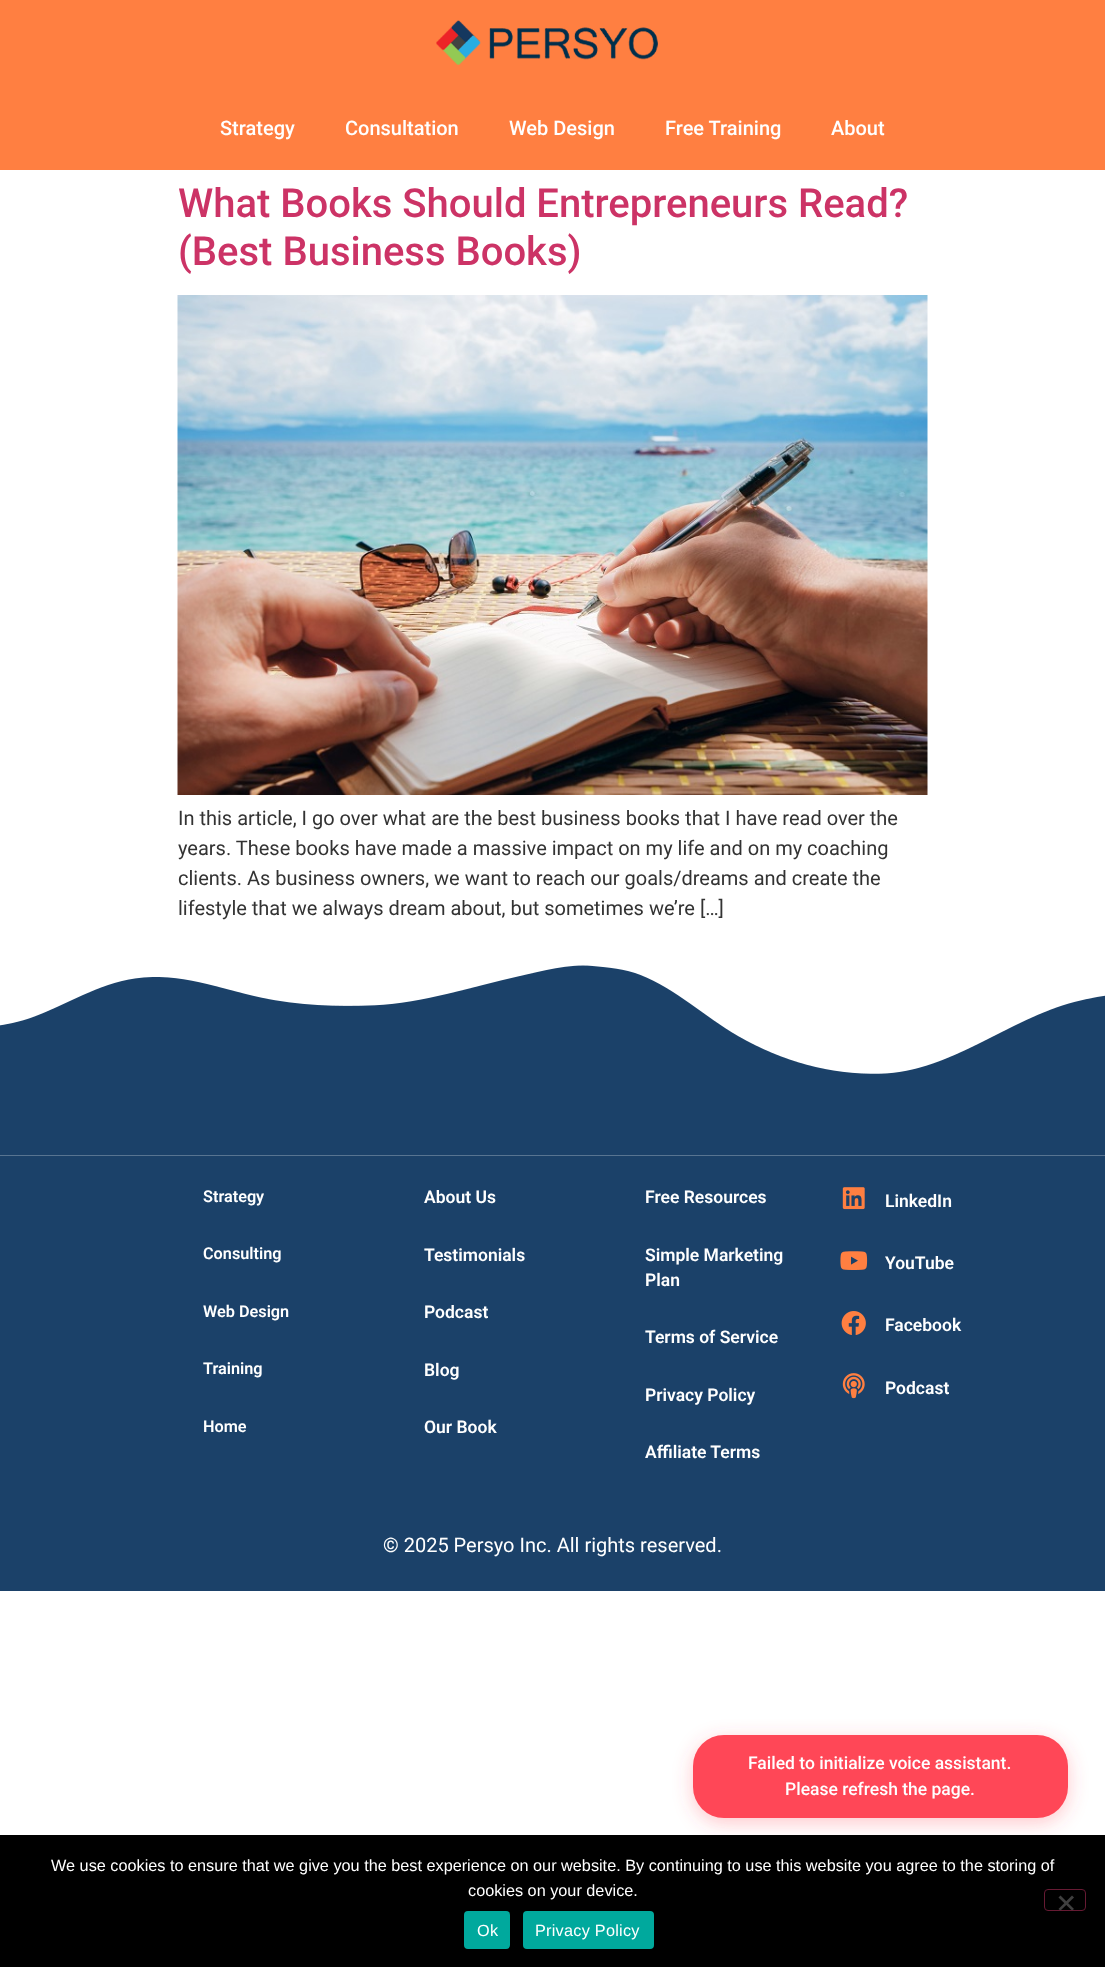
<?xml version="1.0" encoding="UTF-8"?>
<svg xmlns="http://www.w3.org/2000/svg" width="1105" height="1967">
    <defs>
        <filter id="blur1" x="-50%" y="-200%" width="200%" height="500%"><feGaussianBlur stdDeviation="9.5"/></filter>
    </defs>
    <rect width="100%" height="100%" fill="#FFFFFF"/>
    <rect x="0" y="0" width="1105" height="170" fill="#FF7F41"/>
    <image x="436" y="20" width="222" height="45" href="img_01.png"/>
    <text x="220" y="135" font-family="Roboto" font-size="20" font-weight="500" fill="#FFFFFF">Strategy</text>
    <text x="345" y="135" font-family="Roboto" font-size="20" font-weight="500" fill="#FFFFFF">Consultation</text>
    <text x="509" y="135" font-family="Roboto" font-size="20" font-weight="500" fill="#FFFFFF">Web Design</text>
    <text x="665" y="135" font-family="Roboto" font-size="20" font-weight="500" fill="#FFFFFF">Free Training</text>
    <text x="831" y="135" font-family="Roboto" font-size="20" font-weight="500" fill="#FFFFFF">About</text>
    <text font-family="Roboto" font-size="40" font-weight="500" fill="#CC3366">
        <tspan x="178" y="217">What Books Should Entrepreneurs Read?</tspan>
        <tspan x="178" y="265">(Best Business Books)</tspan>
    </text>
    <image x="177" y="295" width="751" height="500" href="img_02.png"/>
    <text font-family="Roboto" font-size="20" fill="#333333">
        <tspan x="178" y="825">In this article, I go over what are the best business books that I have read over the</tspan>
        <tspan x="178" y="855">years. These books have made a massive impact on my life and on my coaching</tspan>
        <tspan x="178" y="885">clients. As business owners, we want to reach our goals/dreams and create the</tspan>
        <tspan x="178" y="915">lifestyle that we always dream about, but sometimes we’re […]</tspan>
    </text>
    <image x="0" y="965" width="1105" height="191" href="img_03.png"/>
    <rect x="0" y="1156" width="1105" height="435" fill="#1B4169"/>
    <text x="203" y="1202" font-family="Roboto" font-size="16.25" font-weight="600" fill="#FFFFFF">Strategy</text>
    <text x="203" y="1259" font-family="Roboto" font-size="16.25" font-weight="600" fill="#FFFFFF">Consulting</text>
    <text x="203" y="1317" font-family="Roboto" font-size="16.25" font-weight="600" fill="#FFFFFF">Web Design</text>
    <text x="203" y="1374" font-family="Roboto" font-size="16.25" font-weight="600" fill="#FFFFFF">Training</text>
    <text x="203" y="1432" font-family="Roboto" font-size="16.25" font-weight="600" fill="#FFFFFF">Home</text>
    <text x="424" y="1203" font-family="Roboto" font-size="17.5" font-weight="600" fill="#FFFFFF">About Us</text>
    <text x="424" y="1261" font-family="Roboto" font-size="17.5" font-weight="600" fill="#FFFFFF">Testimonials</text>
    <text x="424" y="1318" font-family="Roboto" font-size="17.5" font-weight="600" fill="#FFFFFF">Podcast</text>
    <text x="424" y="1376" font-family="Roboto" font-size="17.5" font-weight="600" fill="#FFFFFF">Blog</text>
    <text x="424" y="1433" font-family="Roboto" font-size="17.5" font-weight="600" fill="#FFFFFF">Our Book</text>
    <text x="645" y="1203" font-family="Roboto" font-size="17.5" font-weight="600" fill="#FFFFFF">Free Resources</text>
    <text font-family="Roboto" font-size="17.5" font-weight="600" fill="#FFFFFF">
        <tspan x="645" y="1261">Simple Marketing</tspan>
        <tspan x="645" y="1286">Plan</tspan>
    </text>
    <text x="645" y="1343" font-family="Roboto" font-size="17.5" font-weight="600" fill="#FFFFFF">Terms of Service</text>
    <text x="645" y="1401" font-family="Roboto" font-size="17.5" font-weight="600" fill="#FFFFFF">Privacy Policy</text>
    <text x="645" y="1458" font-family="Roboto" font-size="17.5" font-weight="600" fill="#FFFFFF">Affiliate Terms</text>
    <image x="842" y="1187" width="23" height="23" href="img_04.png"/>
    <text x="885" y="1207" font-family="Roboto" font-size="17.5" font-weight="600" fill="#FFFFFF">LinkedIn</text>
    <image x="840" y="1251" width="28" height="19" href="img_05.png"/>
    <text x="885" y="1269" font-family="Roboto" font-size="17.5" font-weight="600" fill="#FFFFFF">YouTube</text>
    <image x="841" y="1311" width="25" height="24" href="img_06.png"/>
    <text x="885" y="1331" font-family="Roboto" font-size="17.5" font-weight="600" fill="#FFFFFF">Facebook</text>
    <image x="842" y="1373" width="23" height="26" href="img_07.png"/>
    <text x="885" y="1394" font-family="Roboto" font-size="17.5" font-weight="600" fill="#FFFFFF">Podcast</text>
    <text x="383" y="1552" font-family="Roboto" font-size="20" fill="#FFFFFF">© 2025 Persyo Inc. All rights reserved.</text>
    <rect x="693" y="1740" width="375" height="83" rx="31" fill="#FF4757" fill-opacity="0.3" filter="url(#blur1)"/>
    <rect x="693" y="1735" width="375" height="83" rx="31" fill="#FF4757"/>
    <text x="748" y="1769" font-family="Roboto" font-size="17.5" font-weight="500" fill="#FFFFFF">Failed to initialize voice assistant.</text>
    <text x="785" y="1795" font-family="Roboto" font-size="17.5" font-weight="500" fill="#FFFFFF">Please refresh the page.</text>
    <rect x="0" y="1835" width="1105" height="132" fill="#000000"/>
    <text x="51" y="1871" font-family="Liberation Sans" font-size="16.25" fill="#FFFFFF">We use cookies to ensure that we give you the best experience on our website. By continuing to use this website you agree to the storing of</text>
    <text x="468" y="1896" font-family="Liberation Sans" font-size="16.25" fill="#FFFFFF">cookies on your device.</text>
    <rect x="1044.5" y="1889.5" width="41" height="21" rx="3.5" fill="none" stroke="#661A33"/>
    <path d="M 1072 1895.5 L 1074 1897.5 L 1060.5 1910.5 L 1058.5 1909 Z" fill="#404040"/>
    <path d="M 1058.5 1897.5 L 1060.5 1895.5 L 1074 1909 L 1072 1910.5 Z" fill="#404040"/>
    <rect x="464" y="1911" width="46" height="38" rx="4" fill="#00A99D"/>
    <text x="477" y="1936" font-family="Liberation Sans" font-size="16.25" letter-spacing="0.25" fill="#FFFFFF">Ok</text>
    <rect x="523" y="1911" width="131" height="38" rx="4" fill="#00A99D"/>
    <text x="535" y="1936" font-family="Liberation Sans" font-size="16.25" letter-spacing="0.25" fill="#FFFFFF">Privacy Policy</text>
</svg>
